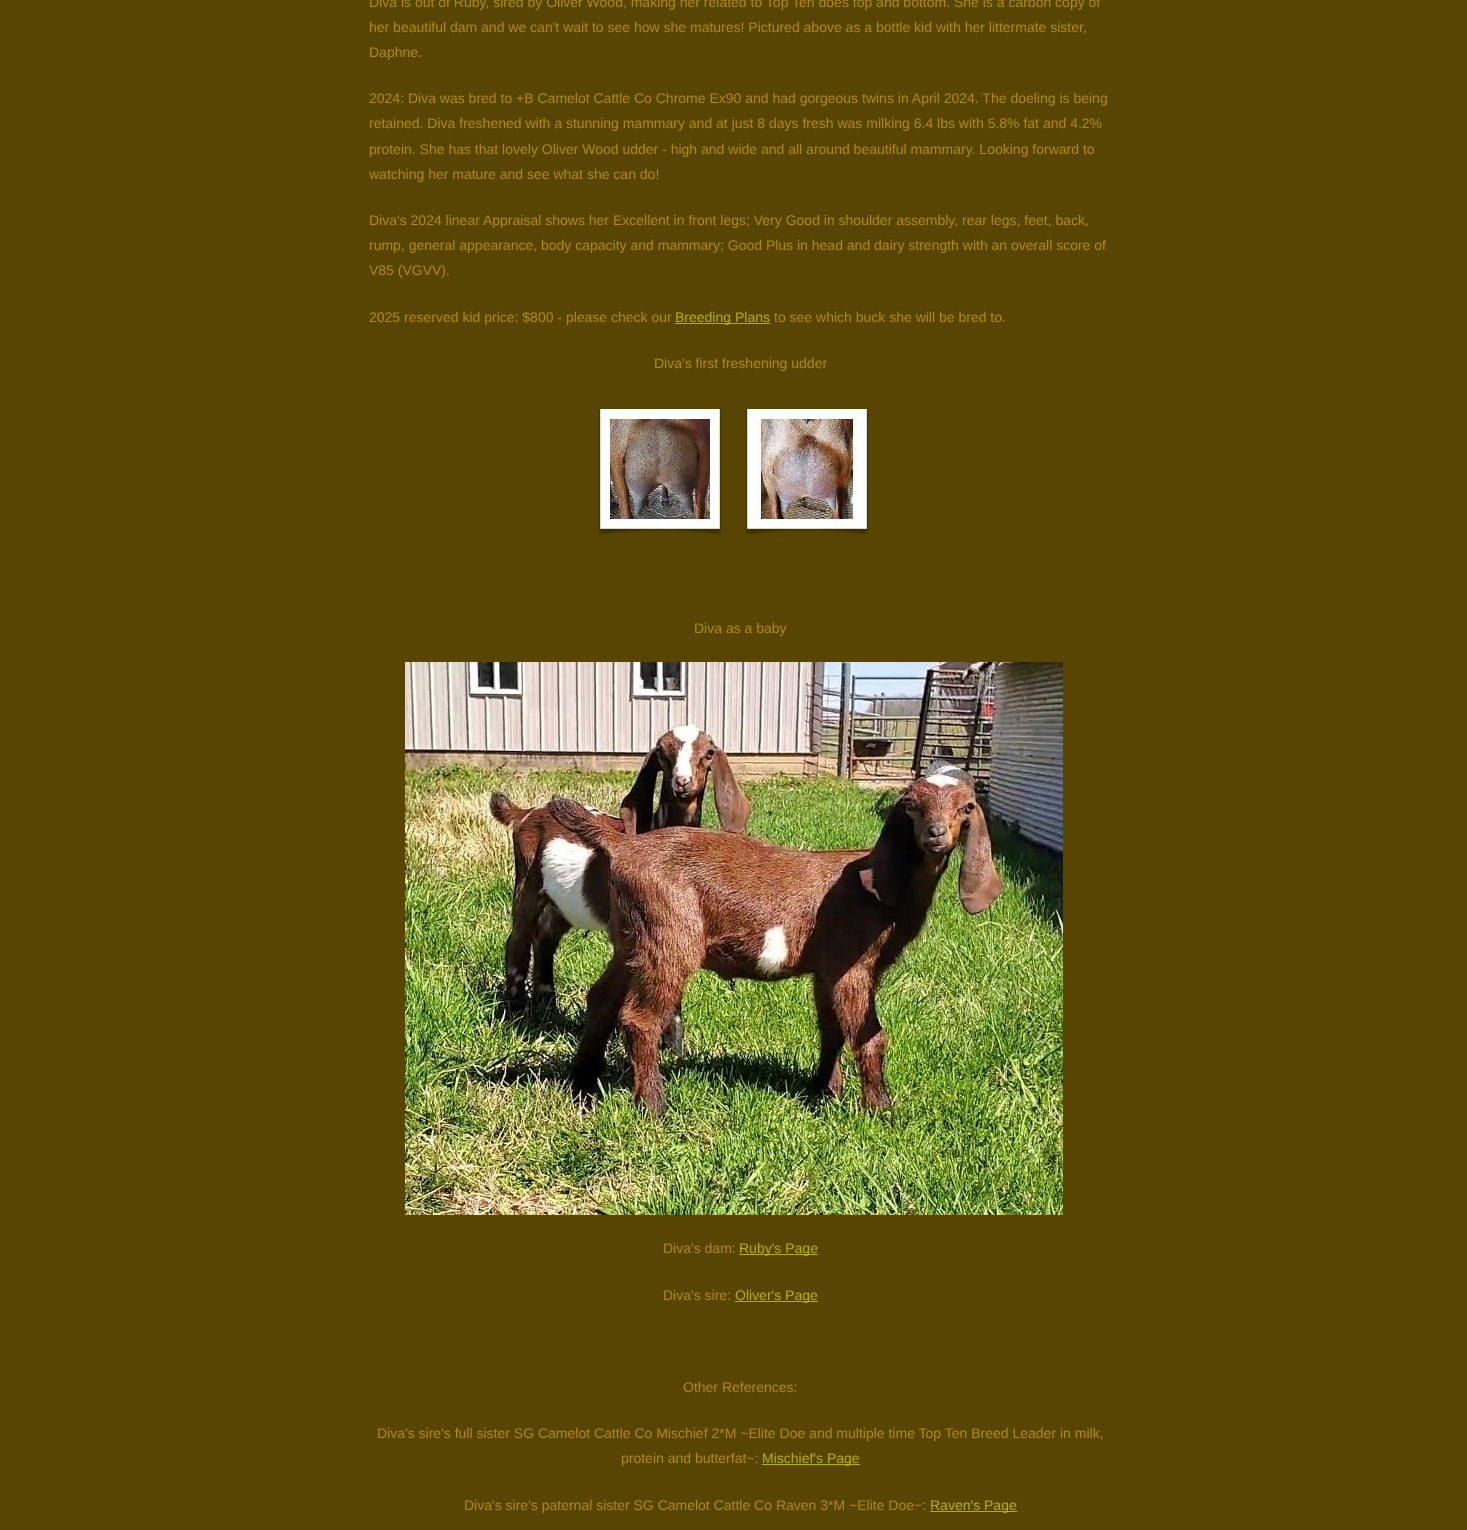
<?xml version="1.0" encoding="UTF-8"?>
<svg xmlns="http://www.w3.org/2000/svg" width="1467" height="1530">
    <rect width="100%" height="100%" fill="#584504"/>
    <text font-family="Liberation Sans" font-size="14" fill="#B08A08">
        <tspan x="369" y="7">Diva is out of Ruby, sired by Oliver Wood, making her related to Top Ten does top and bottom. She is a carbon copy of</tspan>
        <tspan x="369" y="32">her beautiful dam and we can't wait to see how she matures! Pictured above as a bottle kid with her littermate sister,</tspan>
        <tspan x="369" y="57">Daphne.</tspan>
    </text>
    <text font-family="Liberation Sans" font-size="14" fill="#B08A08">
        <tspan x="369" y="103">2024: Diva was bred to +B Camelot Cattle Co Chrome Ex90 and had gorgeous twins in April 2024. The doeling is being</tspan>
        <tspan x="369" y="128">retained. Diva freshened with a stunning mammary and at just 8 days fresh was milking 6.4 lbs with 5.8% fat and 4.2%</tspan>
        <tspan x="369" y="154">protein. She has that lovely Oliver Wood udder - high and wide and all around beautiful mammary. Looking forward to</tspan>
        <tspan x="369" y="179">watching her mature and see what she can do!</tspan>
    </text>
    <text font-family="Liberation Sans" font-size="14" fill="#B08A08">
        <tspan x="369" y="225">Diva's 2024 linear Appraisal shows her Excellent in front legs; Very Good in shoulder assembly, rear legs, feet, back,</tspan>
        <tspan x="369" y="250">rump, general appearance, body capacity and mammary; Good Plus in head and dairy strength with an overall score of</tspan>
        <tspan x="369" y="275">V85 (VGVV).</tspan>
    </text>
    <text x="369" y="322" font-family="Liberation Sans" font-size="14" fill="#B08A08">2025 reserved kid price: $800 - please check our</text>
    <rect x="675" y="323" width="95" height="1" fill="#B1B102"/>
    <text x="675" y="322" font-family="Liberation Sans" font-size="14" fill="#B1B102">Breeding Plans</text>
    <text x="774" y="322" font-family="Liberation Sans" font-size="14" fill="#B08A08">to see which buck she will be bred to.</text>
    <text x="654" y="368" font-family="Liberation Sans" font-size="14" fill="#B08A08">Diva's first freshening udder</text>
    <image x="598" y="409" width="124" height="126" href="img_01.png"/>
    <image x="610" y="419" width="100" height="100" href="img_02.png"/>
    <image x="745" y="409" width="124" height="126" href="img_01.png"/>
    <image x="757" y="419" width="100" height="100" href="img_03.png"/>
    <text x="694" y="633" font-family="Liberation Sans" font-size="14" fill="#B08A08">Diva as a baby</text>
    <image x="405" y="662" width="658" height="553" href="img_04.png"/>
    <text x="663" y="1253" font-family="Liberation Sans" font-size="14" fill="#B08A08">Diva's dam:</text>
    <rect x="739" y="1254" width="79" height="1" fill="#B1B102"/>
    <text x="739" y="1253" font-family="Liberation Sans" font-size="14" fill="#B1B102">Ruby's Page</text>
    <text x="663" y="1300" font-family="Liberation Sans" font-size="14" fill="#B08A08">Diva's sire:</text>
    <rect x="735" y="1301" width="83" height="1" fill="#B1B102"/>
    <text x="735" y="1300" font-family="Liberation Sans" font-size="14" fill="#B1B102">Oliver's Page</text>
    <text x="683" y="1392" font-family="Liberation Sans" font-size="14" fill="#B08A08">Other References:</text>
    <text x="377" y="1438" font-family="Liberation Sans" font-size="14" fill="#B08A08">Diva's sire's full sister SG Camelot Cattle Co Mischief 2*M ~Elite Doe and multiple time Top Ten Breed Leader in milk,</text>
    <text x="621" y="1463" font-family="Liberation Sans" font-size="14" fill="#B08A08">protein and butterfat~:</text>
    <rect x="762" y="1464" width="98" height="1" fill="#B1B102"/>
    <text x="762" y="1463" font-family="Liberation Sans" font-size="14" fill="#B1B102">Mischief's Page</text>
    <text x="464" y="1510" font-family="Liberation Sans" font-size="14" fill="#B08A08">Diva's sire's paternal sister SG Camelot Cattle Co Raven 3*M ~Elite Doe~:</text>
    <rect x="930" y="1511" width="87" height="1" fill="#B1B102"/>
    <text x="930" y="1510" font-family="Liberation Sans" font-size="14" fill="#B1B102">Raven's Page</text>
</svg>
